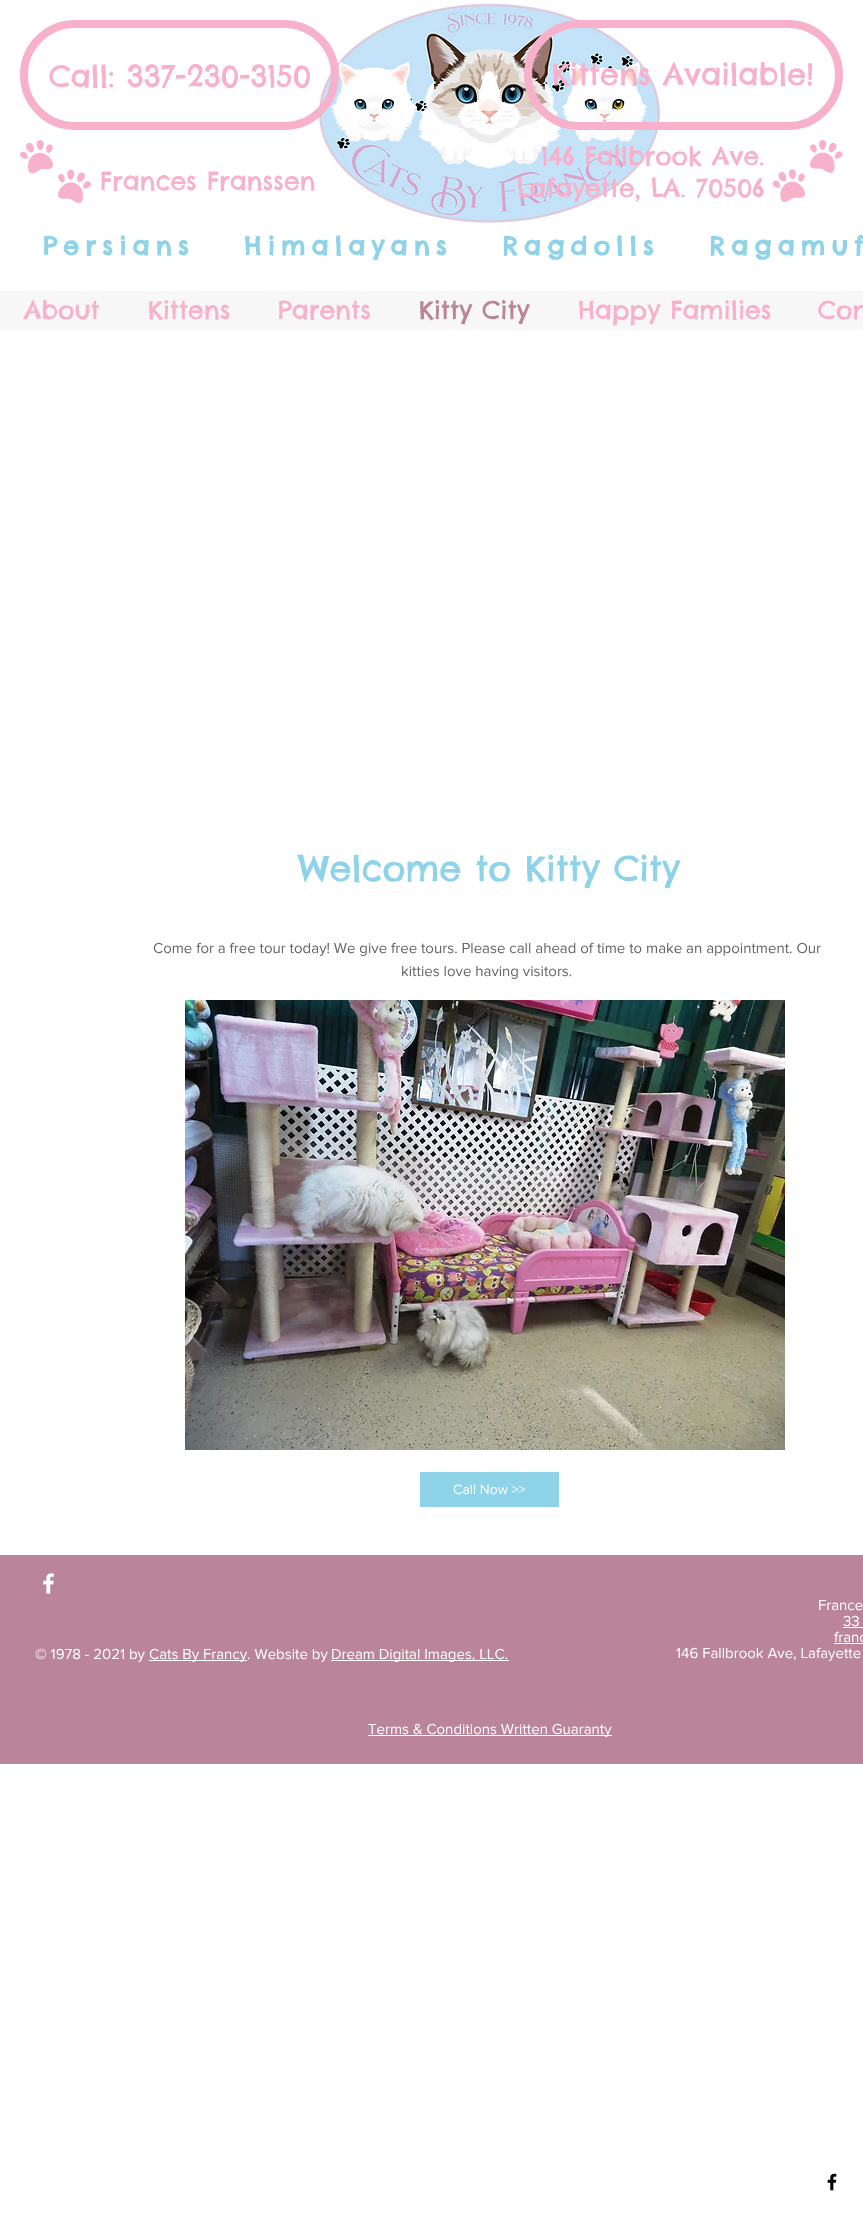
<?xml version="1.0" encoding="UTF-8"?>
<svg xmlns="http://www.w3.org/2000/svg" width="863" height="2213">
    <rect width="100%" height="100%" fill="#FFFFFF"/>
    <image x="319" y="3" width="341" height="220" href="img_03.png"/>
    <rect x="24" y="24" width="311" height="102" rx="51" fill="none" stroke="#F8B1CB" stroke-width="8"/>
    <text x="49" y="87" font-family="Chelsea Market" font-size="30" fill="#F8B1CB">Call: 337-230-3150</text>
    <image x="20" y="140" width="71" height="63" href="img_01.png"/>
    <text x="100" y="190" font-family="Chelsea Market" font-size="25" fill="#F8B1CB">Frances Franssen</text>
    <rect x="528" y="24" width="311" height="102" rx="51" fill="none" stroke="#F8B1CB" stroke-width="8"/>
    <text x="552" y="85" font-family="Chelsea Market" font-size="30" fill="#F8B1CB">Kittens Available!</text>
    <text x="541" y="165" font-family="Chelsea Market" font-size="25" fill="#F8B1CB">146 Fallbrook Ave.</text>
    <text x="517" y="197" font-family="Chelsea Market" font-size="25" fill="#F8B1CB">Lafayette, LA. 70506</text>
    <image x="772" y="140" width="71" height="62" href="img_02.png"/>
    <text x="43" y="255" font-family="Chelsea Market" font-size="25" font-weight="700" letter-spacing="6.25" fill="#8FD3E8" xml:space="preserve">Persians   Himalayans   Ragdolls   Ragamuf</text>
    <rect x="0" y="291" width="863" height="39" fill="#F7F7F7"/>
    <text x="24" y="319" font-family="Chelsea Market" font-size="25" fill="#F8B1CB">About</text>
    <text x="148" y="319" font-family="Chelsea Market" font-size="25" fill="#F8B1CB">Kittens</text>
    <text x="278" y="319" font-family="Chelsea Market" font-size="25" fill="#F8B1CB">Parents</text>
    <text x="419" y="319" font-family="Chelsea Market" font-size="25" fill="#BA8598">Kitty City</text>
    <text x="578" y="319" font-family="Chelsea Market" font-size="25" fill="#F8B1CB">Happy Families</text>
    <text x="818" y="319" font-family="Chelsea Market" font-size="25" fill="#F8B1CB">Con</text>
    <text x="298" y="881" font-family="Chelsea Market" font-size="35" fill="#8FD3E8">Welcome to Kitty City</text>
    <image x="185" y="1000" width="600" height="450" href="img_04.png"/>
    <rect x="420" y="1472" width="139" height="35" fill="#8FD3E8"/>
    <text x="453" y="1494" font-family="'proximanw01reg'" font-size="14" fill="#FFFFFF">Call Now &gt;&gt;</text>
    <text x="153" y="953" font-family="'proximanw01reg'" font-size="15" fill="#666565">Come for a free tour today! We give free tours. Please call ahead of time to make an appointment. Our</text>
    <text x="401" y="976" font-family="'proximanw01reg'" font-size="15" fill="#666565">kitties love having visitors.</text>
    <rect x="0" y="1555" width="863" height="209" fill="#BA8598"/>
    <image x="43" y="1573" width="11" height="21" href="img_05.png"/>
    <text x="35" y="1659" font-family="'proximanw01reg'" font-size="15" fill="#FFFFFF">© 1978 - 2021 by</text>
    <rect x="149" y="1660" width="98" height="1" fill="#FFFFFF"/>
    <text x="149" y="1659" font-family="'proximanw01reg'" font-size="15" fill="#FFFFFF">Cats By Francy. Website by</text>
    <rect x="331" y="1660" width="178" height="1" fill="#FFFFFF"/>
    <text x="331" y="1659" font-family="'proximanw01reg'" font-size="15" fill="#FFFFFF">Dream Digital Images, LLC.</text>
    <text x="818" y="1610" font-family="'proximanw01reg'" font-size="15" fill="#FFFFFF">France</text>
    <text x="843" y="1626" font-family="'proximanw01reg'" font-size="15" fill="#FFFFFF">33</text>
    <rect x="843" y="1627" width="20" height="1" fill="#FFFFFF"/>
    <text x="834" y="1642" font-family="'proximanw01reg'" font-size="15" fill="#FFFFFF">franc</text>
    <rect x="834" y="1643" width="29" height="1" fill="#FFFFFF"/>
    <text x="676" y="1658" font-family="'proximanw01reg'" font-size="15" fill="#FFFFFF">146 Fallbrook Ave, Lafayette</text>
    <rect x="368" y="1735" width="244" height="1" fill="#FFFFFF"/>
    <text x="368" y="1734" font-family="'proximanw01reg'" font-size="15" fill="#FFFFFF">Terms &amp; Conditions Written Guaranty</text>
    <image x="827" y="2173" width="10" height="18" href="img_06.png"/>
</svg>
